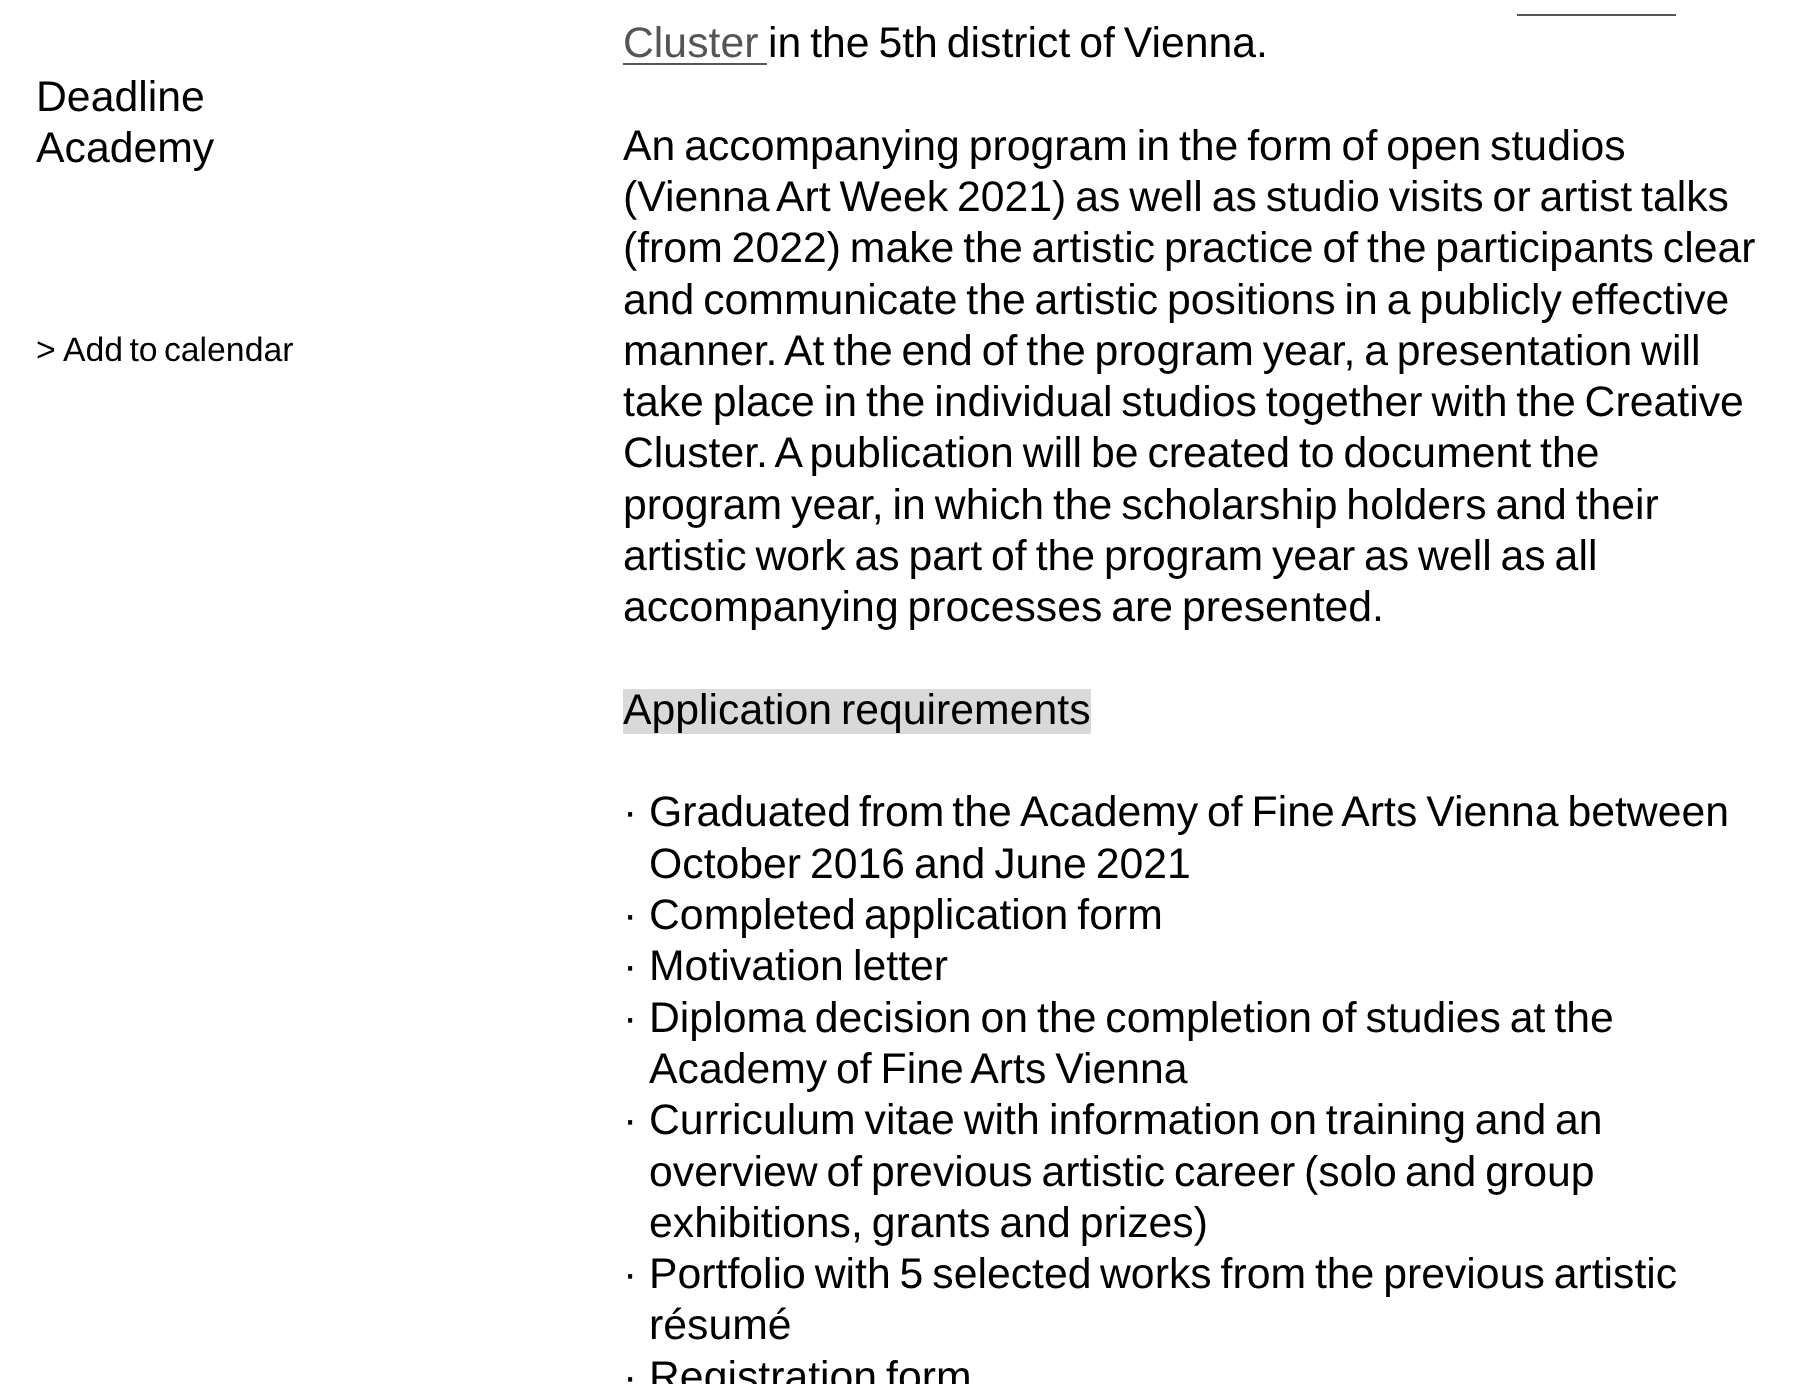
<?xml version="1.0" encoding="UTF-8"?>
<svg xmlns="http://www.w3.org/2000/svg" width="1796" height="1384">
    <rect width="100%" height="100%" fill="#FFFFFF"/>
    <text font-family="Liberation Sans" font-size="42.75" fill="#000000">
        <tspan x="36" y="111">Deadline</tspan>
        <tspan x="36" y="162">Academy</tspan>
    </text>
    <text x="623" y="57" font-family="Liberation Sans" font-size="42.75" fill="#555555">Cluster</text>
    <rect x="1517" y="14" width="159" height="2" fill="#555555"/>
    <rect x="623" y="63" width="144" height="2" fill="#555555"/>
    <text x="768" y="57" word-spacing="-3" font-family="Liberation Sans" font-size="42.75" fill="#000000">in the 5th district of Vienna.</text>
    <text font-family="Liberation Sans" font-size="42.75" fill="#000000">
        <tspan x="623" y="160" word-spacing="-3">An accompanying program in the form of open studios</tspan>
        <tspan x="623" y="211" word-spacing="-3">(Vienna Art Week 2021) as well as studio visits or artist talks</tspan>
        <tspan x="623" y="262" word-spacing="-3">(from 2022) make the artistic practice of the participants clear</tspan>
        <tspan x="623" y="314" word-spacing="-3">and communicate the artistic positions in a publicly effective</tspan>
        <tspan x="623" y="365" word-spacing="-3">manner. At the end of the program year, a presentation will</tspan>
        <tspan x="623" y="416" word-spacing="-3">take place in the individual studios together with the Creative</tspan>
        <tspan x="623" y="467" word-spacing="-3">Cluster. A publication will be created to document the</tspan>
        <tspan x="623" y="519" word-spacing="-3">program year, in which the scholarship holders and their</tspan>
        <tspan x="623" y="570" word-spacing="-3">artistic work as part of the program year as well as all</tspan>
        <tspan x="623" y="621" word-spacing="-3">accompanying processes are presented.</tspan>
    </text>
    <rect x="623" y="689" width="468" height="45" fill="#D9D9D9"/>
    <text x="623" y="724" word-spacing="-3" font-family="Liberation Sans" font-size="42.75" fill="#000000">Application requirements</text>
    <text x="623" y="826" font-family="Liberation Sans" font-size="42.75" fill="#000000">·</text>
    <text x="649" y="826" word-spacing="-4" font-family="Liberation Sans" font-size="42.75" fill="#000000">Graduated from the</text>
    <text x="1020" y="826" word-spacing="-3" font-family="Liberation Sans" font-size="42.75" fill="#000000">Academy of Fine Arts Vienna between</text>
    <text x="649" y="878" word-spacing="-3" font-family="Liberation Sans" font-size="42.75" fill="#000000">October 2016 and June 2021</text>
    <text x="623" y="929" font-family="Liberation Sans" font-size="42.75" fill="#000000">·</text>
    <text x="649" y="929" font-family="Liberation Sans" font-size="42.75" fill="#000000">Completed</text>
    <text x="864" y="929" word-spacing="-3" font-family="Liberation Sans" font-size="42.75" fill="#000000">application form</text>
    <text x="623" y="980" font-family="Liberation Sans" font-size="42.75" fill="#000000">·</text>
    <text x="649" y="980" font-family="Liberation Sans" font-size="42.75" fill="#000000">Motivation</text>
    <text x="853" y="980" font-family="Liberation Sans" font-size="42.75" fill="#000000">letter</text>
    <text x="623" y="1032" font-family="Liberation Sans" font-size="42.75" fill="#000000">·</text>
    <text x="649" y="1032" word-spacing="-3" font-family="Liberation Sans" font-size="42.75" fill="#000000">Diploma decision on</text>
    <text x="1037" y="1032" word-spacing="-3" font-family="Liberation Sans" font-size="42.75" fill="#000000">the completion of studies at the</text>
    <text x="649" y="1083" word-spacing="-3" font-family="Liberation Sans" font-size="42.75" fill="#000000">Academy of Fine Arts Vienna</text>
    <text x="623" y="1134" font-family="Liberation Sans" font-size="42.75" fill="#000000">·</text>
    <text x="649" y="1134" word-spacing="-3" font-family="Liberation Sans" font-size="42.75" fill="#000000">Curriculum vitae with</text>
    <text x="1049" y="1134" word-spacing="-3" font-family="Liberation Sans" font-size="42.75" fill="#000000">information on training and an</text>
    <text x="649" y="1186" word-spacing="-3" font-family="Liberation Sans" font-size="42.75" fill="#000000">overview of previous artistic career (solo</text>
    <text x="1405" y="1186" word-spacing="-3" font-family="Liberation Sans" font-size="42.75" fill="#000000">and group</text>
    <text x="649" y="1237" word-spacing="-3" font-family="Liberation Sans" font-size="42.75" fill="#000000">exhibitions, grants and prizes)</text>
    <text x="623" y="1288" font-family="Liberation Sans" font-size="42.75" fill="#000000">·</text>
    <text x="649" y="1288" word-spacing="-3" font-family="Liberation Sans" font-size="42.75" fill="#000000">Portfolio with 5 selected</text>
    <text x="1100" y="1288" word-spacing="-3" font-family="Liberation Sans" font-size="42.75" fill="#000000">works from the previous artistic</text>
    <text x="649" y="1339" font-family="Liberation Sans" font-size="42.75" fill="#000000">résumé</text>
    <text x="623" y="1391" font-family="Liberation Sans" font-size="42.75" fill="#000000">·</text>
    <text x="649" y="1391" font-family="Liberation Sans" font-size="42.75" fill="#000000">Registration</text>
    <text x="886" y="1391" font-family="Liberation Sans" font-size="42.75" fill="#000000">form</text>
    <text x="36" y="361" font-family="Liberation Sans" font-size="33.75" fill="#000000">&gt;</text>
    <text x="63" y="361" word-spacing="-3" font-family="Liberation Sans" font-size="33.75" fill="#000000">Add to calendar</text>
</svg>
